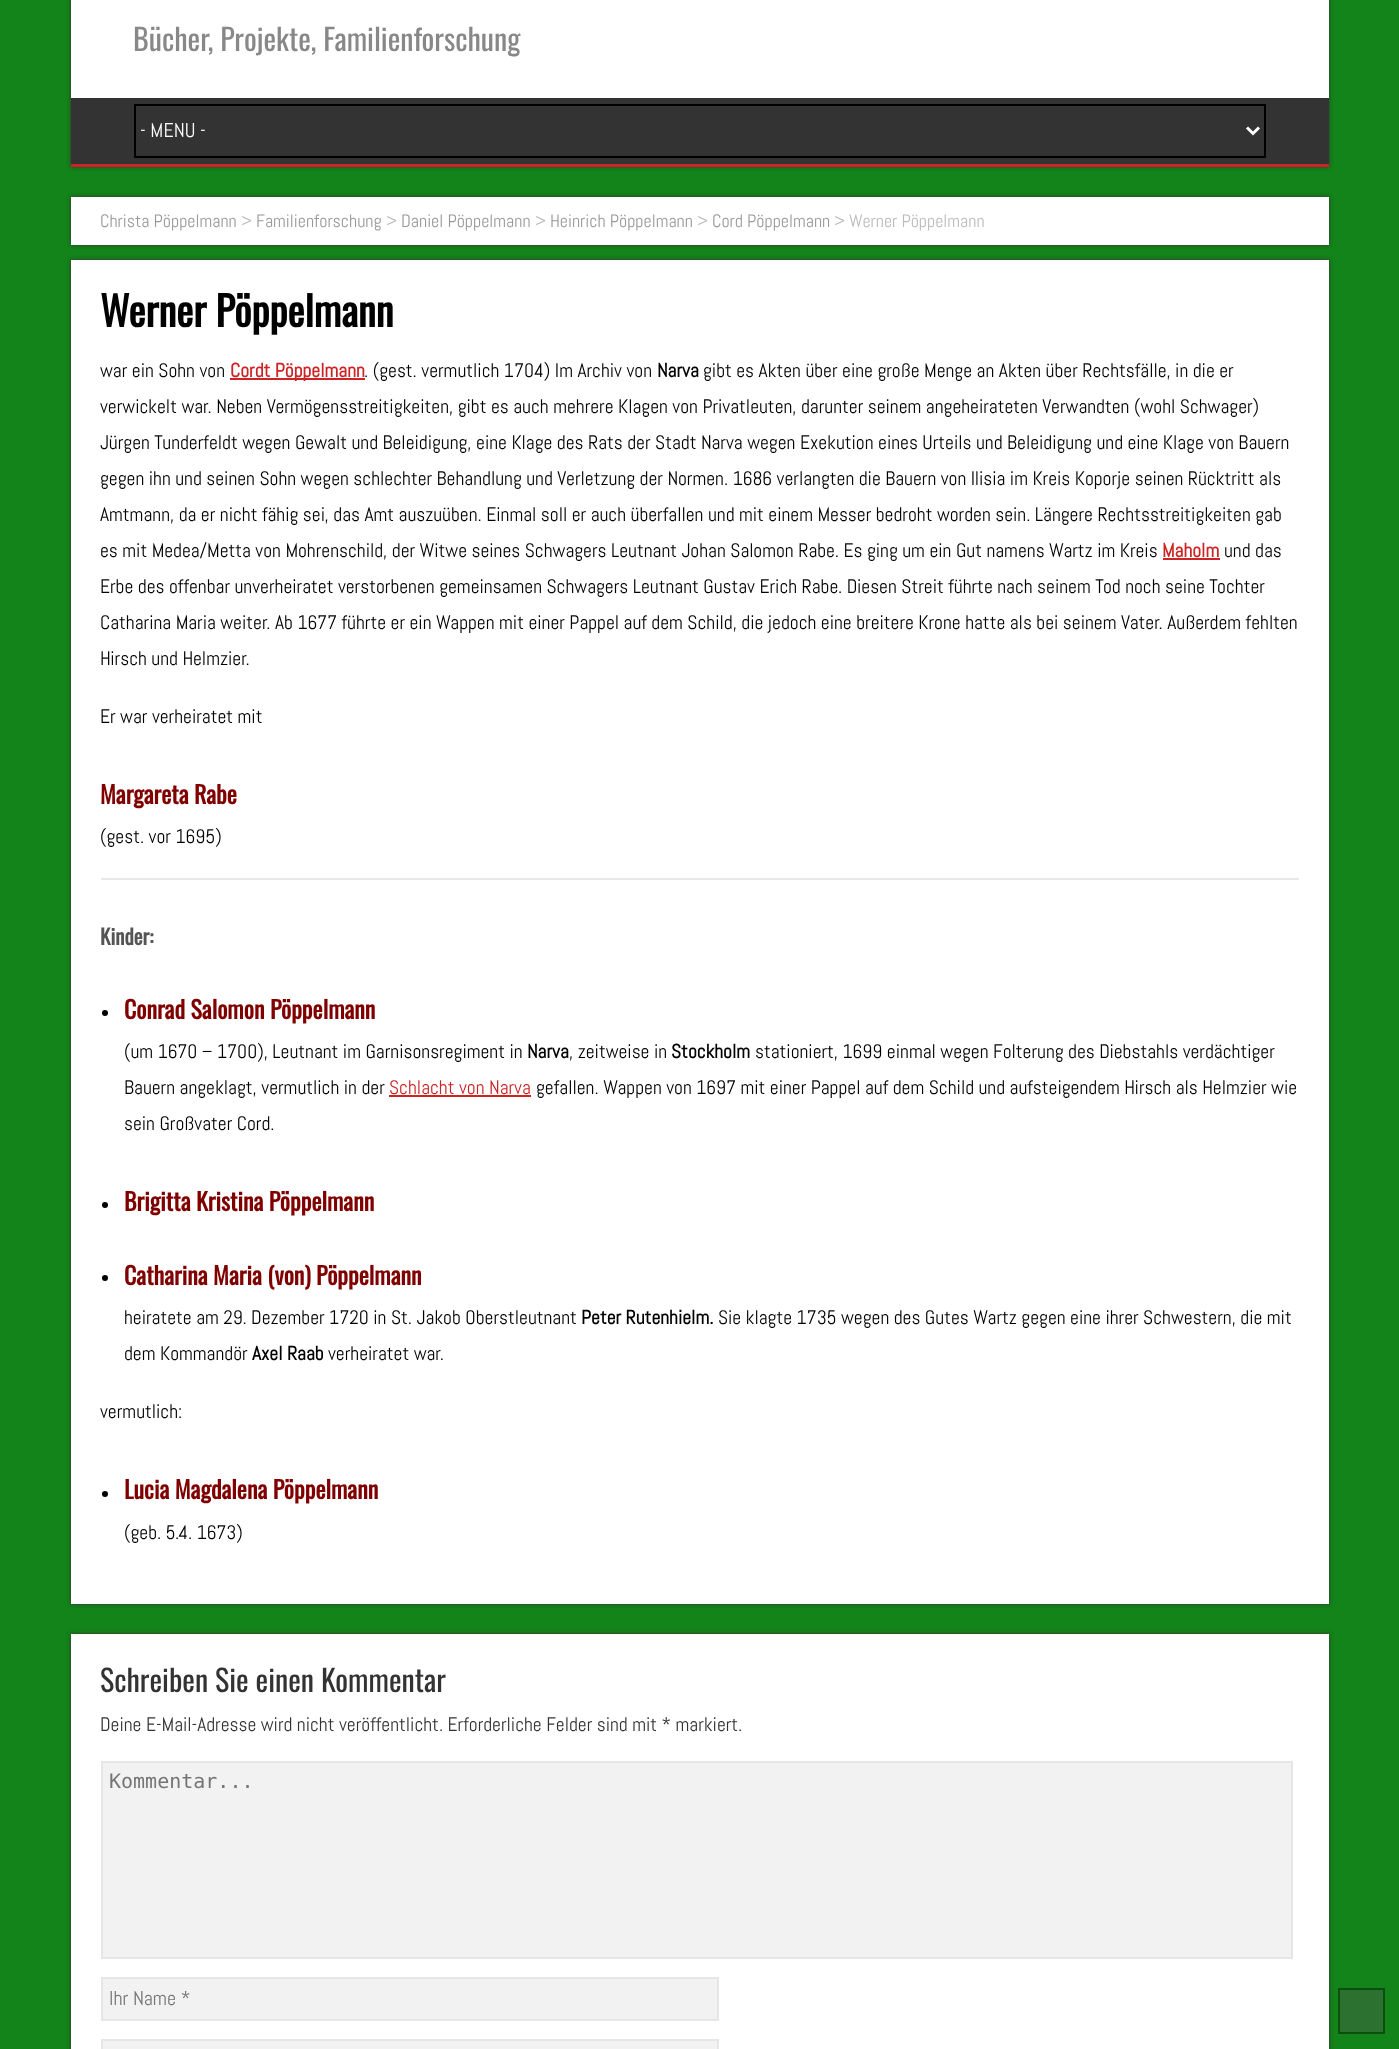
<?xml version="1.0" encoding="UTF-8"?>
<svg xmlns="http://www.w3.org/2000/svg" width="1399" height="2049">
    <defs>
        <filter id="blur1" x="-50%" y="-200%" width="200%" height="500%"><feGaussianBlur stdDeviation="2"/></filter>
    </defs>
    <rect width="100%" height="100%" fill="#138419"/>
    <rect x="71" y="-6" width="1258" height="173" fill="#333333" filter="url(#blur1)"/>
    <rect x="71" y="0" width="1258" height="98" fill="#FFFFFF"/>
    <text x="133" y="51" font-family="Oswald" font-size="30" fill="#888888">Bücher, Projekte, Familienforschung</text>
    <rect x="71" y="98" width="1258" height="66" fill="#333333"/>
    <rect x="71" y="164" width="1258" height="3" fill="#CD2324"/>
    <rect x="135" y="105" width="1130" height="52" fill="none" stroke="#000000" stroke-width="2"/>
    <path d="M 1247 127.5 L 1253 133.5 L 1259 127.5" fill="none" stroke="#FFFFFF" stroke-width="3"/>
    <text x="140" y="137" font-family="Abel" font-size="20" fill="#FFFFFF">- MENU -</text>
    <rect x="71" y="197" width="1258" height="48" fill="#333333" filter="url(#blur1)"/>
    <rect x="71" y="197" width="1258" height="48" fill="#FFFFFF"/>
    <text x="100" y="227" font-family="Abel" font-size="18" fill="#999999">Christa Pöppelmann</text>
    <text x="241" y="227" font-family="Abel" font-size="18" fill="#BBBBBB">&gt;</text>
    <text x="256" y="227" font-family="Abel" font-size="18" fill="#999999">Familienforschung</text>
    <text x="386" y="227" font-family="Abel" font-size="18" fill="#BBBBBB">&gt;</text>
    <text x="401" y="227" font-family="Abel" font-size="18" fill="#999999">Daniel Pöppelmann</text>
    <text x="535" y="227" font-family="Abel" font-size="18" fill="#BBBBBB">&gt;</text>
    <text x="550" y="227" font-family="Abel" font-size="18" fill="#999999">Heinrich Pöppelmann</text>
    <text x="697" y="227" font-family="Abel" font-size="18" fill="#BBBBBB">&gt;</text>
    <text x="712" y="227" font-family="Abel" font-size="18" fill="#999999">Cord Pöppelmann</text>
    <text x="834" y="227" font-family="Abel" font-size="18" fill="#BBBBBB">&gt; Werner Pöppelmann</text>
    <rect x="71" y="260" width="1258" height="1344" fill="#333333" filter="url(#blur1)"/>
    <rect x="71" y="260" width="1258" height="1344" fill="#FFFFFF"/>
    <text x="100" y="327" font-family="Oswald" font-size="40.5" font-weight="700" fill="#000000">Werner Pöppelmann</text>
    <text x="100" y="377" font-family="Abel" font-size="19.5" fill="#000000">war ein Sohn von</text>
    <rect x="230" y="378" width="135" height="2" fill="#CD2324"/>
    <text x="230" y="377" font-family="Abel" font-size="19.5" font-weight="700" fill="#CD2324">Cordt Pöppelmann</text>
    <text x="364" y="377" font-family="Abel" font-size="19.5" fill="#000000">. (gest. vermutlich 1704) Im Archiv von</text>
    <text x="657" y="377" font-family="Abel" font-size="19.5" font-weight="700" fill="#000000">Narva</text>
    <text x="703" y="377" font-family="Abel" font-size="19.5" fill="#000000">gibt es Akten über eine große Menge an Akten über Rechtsfälle, in die er</text>
    <text font-family="Abel" font-size="19.5" fill="#000000">
        <tspan x="100" y="413">verwickelt war. Neben Vermögensstreitigkeiten, gibt es auch mehrere Klagen von Privatleuten, darunter seinem angeheirateten Verwandten (wohl Schwager)</tspan>
        <tspan x="100" y="449">Jürgen Tunderfeldt wegen Gewalt und Beleidigung, eine Klage des Rats der Stadt Narva wegen Exekution eines Urteils und Beleidigung und eine Klage von Bauern</tspan>
        <tspan x="100" y="485">gegen ihn und seinen Sohn wegen schlechter Behandlung und Verletzung der Normen. 1686 verlangten die Bauern von Ilisia im Kreis Koporje seinen Rücktritt als</tspan>
        <tspan x="100" y="521">Amtmann, da er nicht fähig sei, das Amt auszuüben. Einmal soll er auch überfallen und mit einem Messer bedroht worden sein. Längere Rechtsstreitigkeiten gab</tspan>
        <tspan x="100" y="557">es mit Medea/Metta von Mohrenschild, der Witwe seines Schwagers Leutnant Johan Salomon Rabe. Es ging um ein Gut namens Wartz im Kreis</tspan>
    </text>
    <text x="1162" y="557" font-family="Abel" font-size="19.5" font-weight="700" fill="#CD2324">Maholm</text>
    <rect x="1163" y="558" width="57" height="2" fill="#CD2324"/>
    <text x="1224" y="557" font-family="Abel" font-size="19.5" fill="#000000">und das</text>
    <text font-family="Abel" font-size="19.5" fill="#000000">
        <tspan x="100" y="593">Erbe des offenbar unverheiratet verstorbenen gemeinsamen Schwagers Leutnant Gustav Erich Rabe. Diesen Streit führte nach seinem Tod noch seine Tochter</tspan>
        <tspan x="100" y="629">Catharina Maria weiter. Ab 1677 führte er ein Wappen mit einer Pappel auf dem Schild, die jedoch eine breitere Krone hatte als bei seinem Vater. Außerdem fehlten</tspan>
        <tspan x="100" y="665">Hirsch und Helmzier.</tspan>
    </text>
    <text x="100" y="723" font-family="Abel" font-size="19.5" fill="#000000">Er war verheiratet mit</text>
    <text x="100" y="804" font-family="Oswald" font-size="24" font-weight="700" fill="#800000">Margareta Rabe</text>
    <text x="100" y="843" font-family="Abel" font-size="19.5" fill="#000000">(gest. vor 1695)</text>
    <rect x="101" y="878" width="1198" height="2" fill="#E8E8E8"/>
    <text x="100" y="945" font-family="Oswald" font-size="21" font-weight="700" fill="#555555">Kinder:</text>
    <circle cx="105" cy="1013" r="3" fill="#000000"/>
    <text x="124" y="1019" font-family="Oswald" font-size="24" font-weight="700" fill="#800000">Conrad Salomon Pöppelmann</text>
    <text x="124" y="1058" font-family="Abel" font-size="19.5" fill="#000000">(um 1670 – 1700), Leutnant im Garnisonsregiment in</text>
    <text x="527" y="1058" font-family="Abel" font-size="19.5" font-weight="700" fill="#000000">Narva</text>
    <text x="569" y="1058" font-family="Abel" font-size="19.5" fill="#000000">, zeitweise in</text>
    <text x="671" y="1058" font-family="Abel" font-size="19.5" font-weight="700" fill="#000000">Stockholm</text>
    <text x="755" y="1058" font-family="Abel" font-size="19.5" fill="#000000">stationiert, 1699 einmal wegen Folterung des Diebstahls verdächtiger</text>
    <text x="124" y="1094" font-family="Abel" font-size="19.5" fill="#000000">Bauern angeklagt, vermutlich in der</text>
    <text x="389" y="1094" font-family="Abel" font-size="19.5" fill="#CD2324">Schlacht von Narva</text>
    <rect x="389" y="1095" width="142" height="2" fill="#CD2324"/>
    <text x="536" y="1094" font-family="Abel" font-size="19.5" fill="#000000">gefallen. Wappen von 1697 mit einer Pappel auf dem Schild und aufsteigendem Hirsch als Helmzier wie</text>
    <text x="124" y="1130" font-family="Abel" font-size="19.5" fill="#000000">sein Großvater Cord.</text>
    <circle cx="105" cy="1205" r="3" fill="#000000"/>
    <text x="124" y="1211" font-family="Oswald" font-size="24" font-weight="700" fill="#800000">Brigitta Kristina Pöppelmann</text>
    <circle cx="105" cy="1278" r="3" fill="#000000"/>
    <text x="124" y="1285" font-family="Oswald" font-size="24" font-weight="700" fill="#800000">Catharina Maria (von) Pöppelmann</text>
    <text x="124" y="1324" font-family="Abel" font-size="19.5" fill="#000000">heiratete am 29. Dezember 1720 in St. Jakob Oberstleutnant</text>
    <text x="581" y="1324" font-family="Abel" font-size="19.5" font-weight="700" fill="#000000">Peter Rutenhielm.</text>
    <text x="718" y="1324" font-family="Abel" font-size="19.5" fill="#000000">Sie klagte 1735 wegen des Gutes Wartz gegen eine ihrer Schwestern, die mit</text>
    <text x="124" y="1360" font-family="Abel" font-size="19.5" fill="#000000">dem Kommandör</text>
    <text x="252" y="1360" font-family="Abel" font-size="19.5" font-weight="700" fill="#000000">Axel Raab</text>
    <text x="328" y="1360" font-family="Abel" font-size="19.5" fill="#000000">verheiratet war.</text>
    <text x="100" y="1418" font-family="Abel" font-size="19.5" fill="#000000">vermutlich:</text>
    <circle cx="105" cy="1494" r="3" fill="#000000"/>
    <text x="124" y="1499" font-family="Oswald" font-size="24" font-weight="700" fill="#800000">Lucia Magdalena Pöppelmann</text>
    <text x="124" y="1539" font-family="Abel" font-size="19.5" fill="#000000">(geb. 5.4. 1673)</text>
    <rect x="71" y="1634" width="1258" height="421" fill="#333333" filter="url(#blur1)"/>
    <rect x="71" y="1634" width="1258" height="415" fill="#FFFFFF"/>
    <text x="100" y="1692" font-family="Oswald" font-size="30" fill="#333333">Schreiben Sie einen Kommentar</text>
    <text x="100" y="1731" font-family="Abel" font-size="19.5" fill="#333333">Deine E-Mail-Adresse wird nicht veröffentlicht. Erforderliche Felder sind mit * markiert.</text>
    <rect x="102" y="1762" width="1190" height="196" fill="#F2F2F2" stroke="#E6E6E6" stroke-width="2"/>
    <text x="109" y="1788" font-family="DejaVu Sans Mono" font-size="20" fill="#757575">Kommentar...</text>
    <rect x="102" y="1978" width="616" height="42" fill="#F2F2F2" stroke="#E6E6E6" stroke-width="2"/>
    <text x="109" y="2005" font-family="Abel" font-size="20" fill="#757575">Ihr Name *</text>
    <rect x="102" y="2040" width="616" height="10" fill="#F2F2F2" stroke="#E6E6E6" stroke-width="2"/>
    <rect x="1339" y="1989" width="45" height="44" fill="#2D7131" stroke="#0B4F0F" stroke-width="2"/>
</svg>
